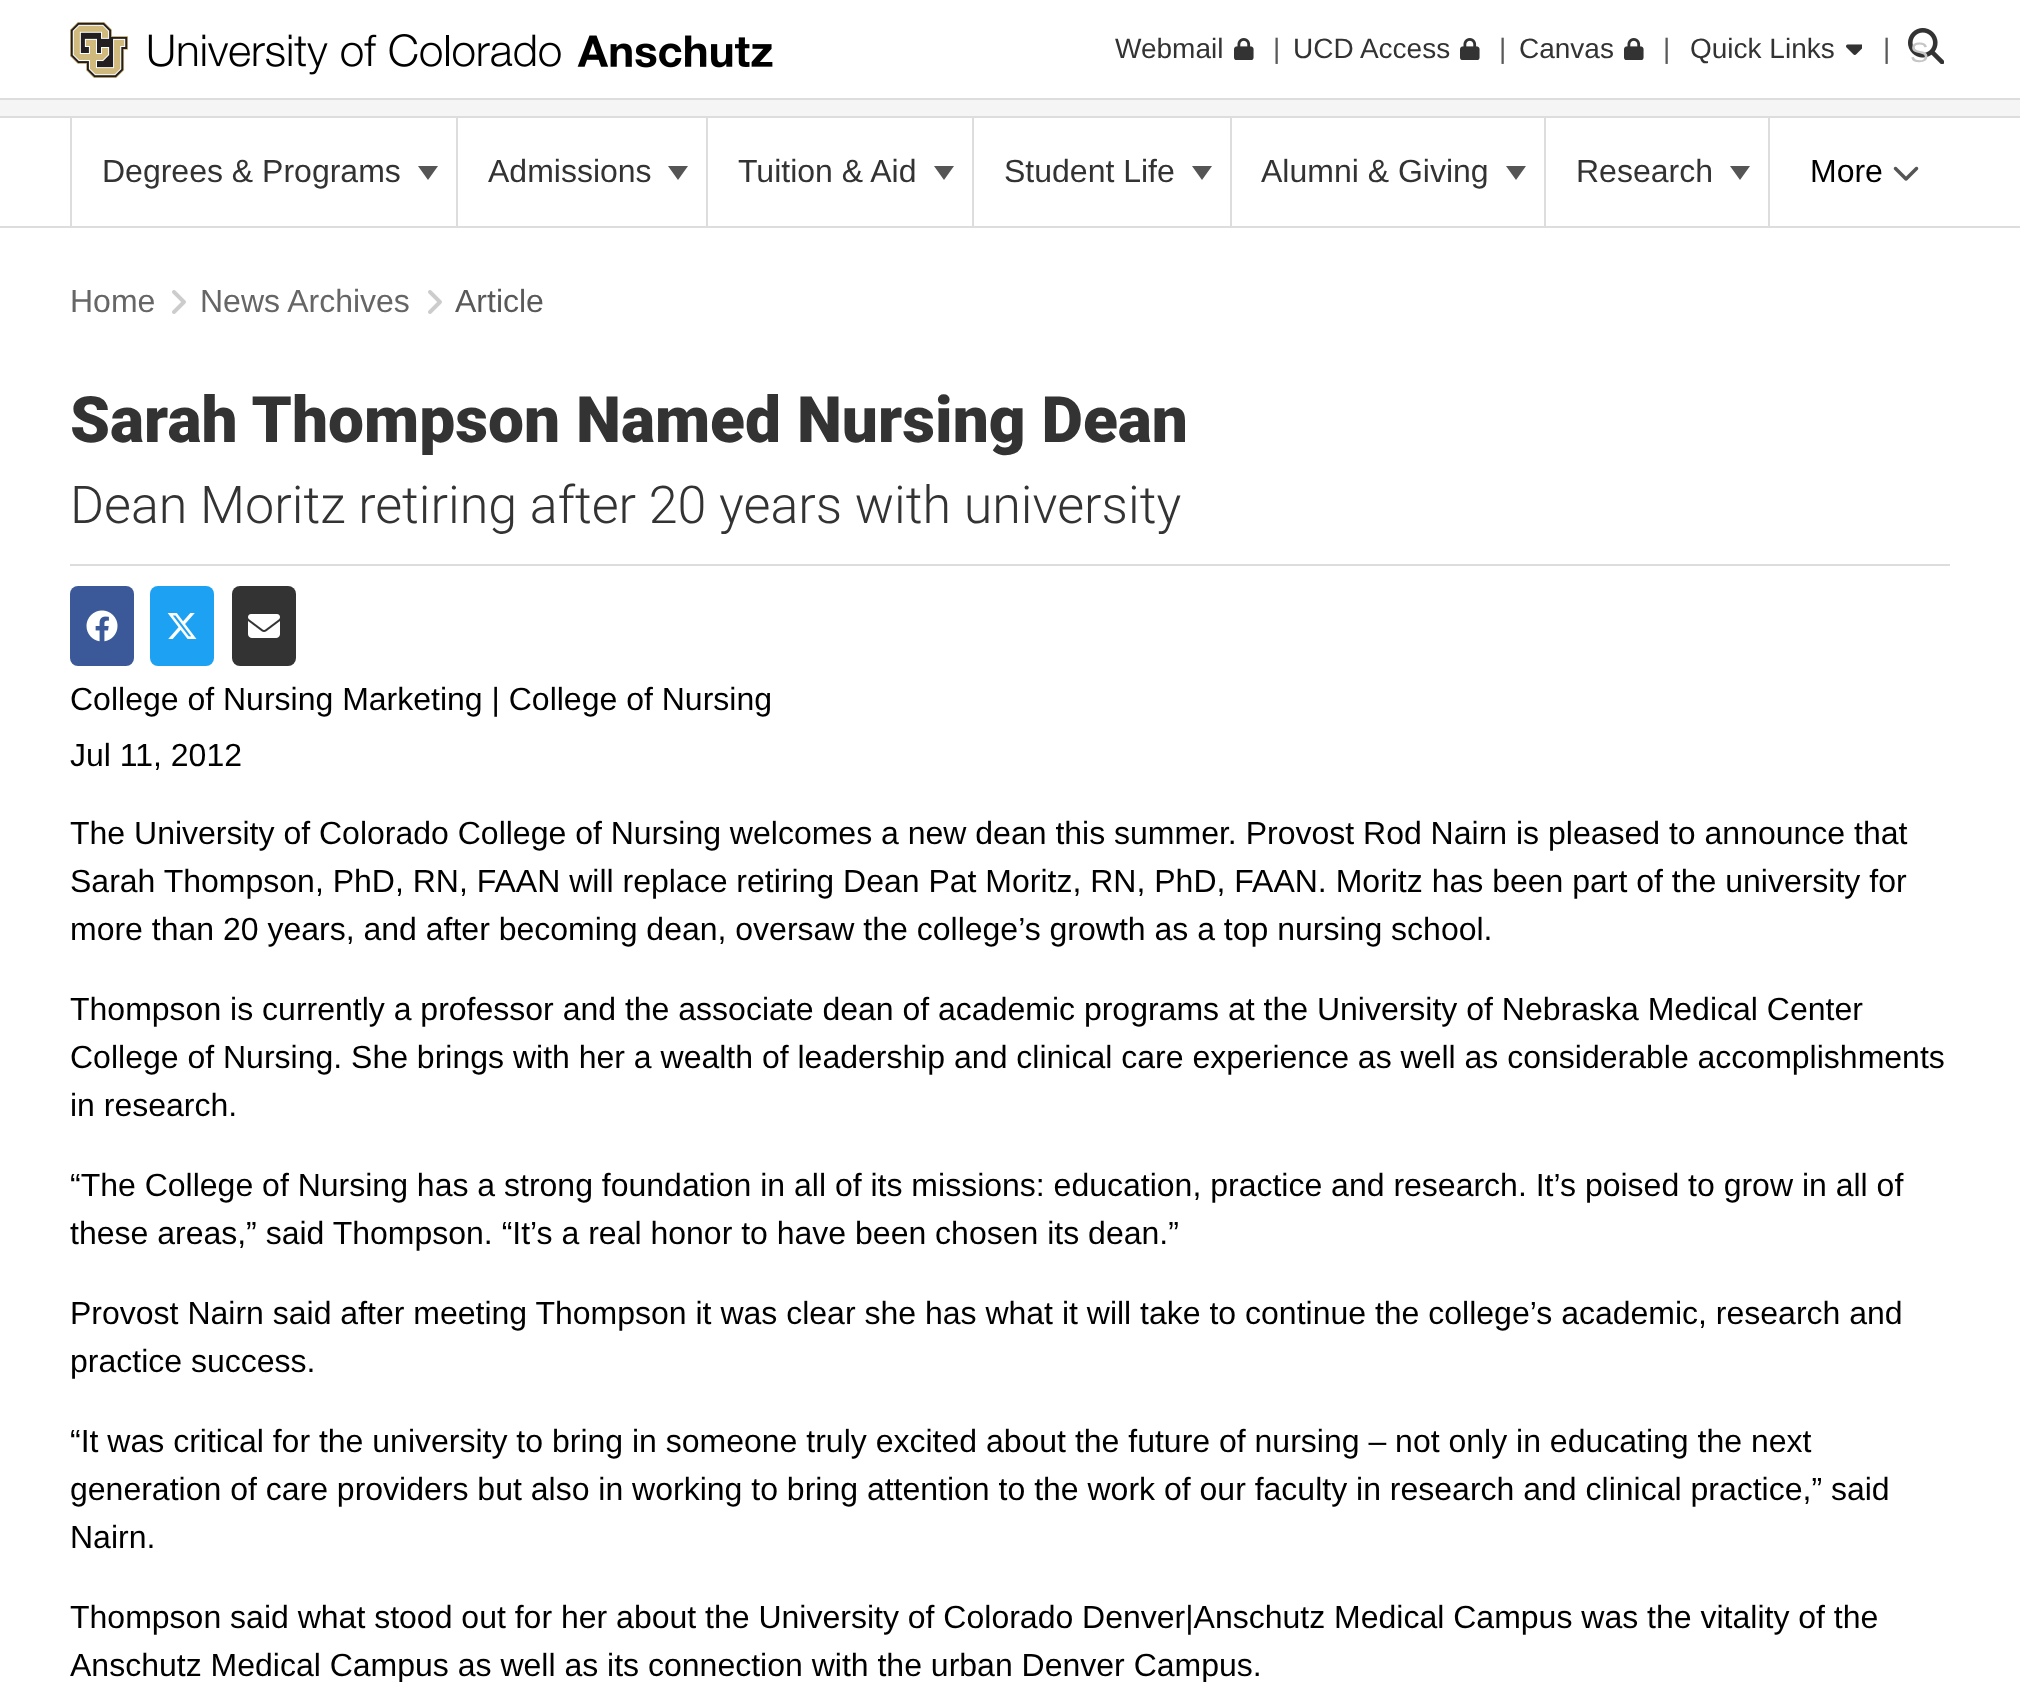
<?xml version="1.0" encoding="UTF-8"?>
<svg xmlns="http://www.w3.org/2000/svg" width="2020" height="1682">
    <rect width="100%" height="100%" fill="#FFFFFF"/>
    <rect x="0" y="98" width="2020" height="2" fill="#DDDDDD"/>
    <image x="70" y="22" width="703" height="56" href="img_01.png"/>
    <text x="1115" y="58" font-family="Liberation Sans" font-size="28" fill="#333333">Webmail</text>
    <image x="1234" y="38" width="20" height="22" href="img_02.png"/>
    <text x="1273" y="58" font-family="Liberation Sans" font-size="28" fill="#595959">|</text>
    <text x="1293" y="58" font-family="Liberation Sans" font-size="28" fill="#333333">UCD Access</text>
    <image x="1460" y="38" width="20" height="22" href="img_02.png"/>
    <text x="1499" y="58" font-family="Liberation Sans" font-size="28" fill="#595959">|</text>
    <text x="1519" y="58" font-family="Liberation Sans" font-size="28" fill="#333333">Canvas</text>
    <image x="1624" y="38" width="20" height="22" href="img_02.png"/>
    <text x="1663" y="58" font-family="Liberation Sans" font-size="28" fill="#595959">|</text>
    <text x="1690" y="58" font-family="Liberation Sans" font-size="28" fill="#333333">Quick Links</text>
    <image x="1846" y="44" width="16" height="11" href="img_03.png"/>
    <text x="1883" y="58" font-family="Liberation Sans" font-size="28" fill="#595959">|</text>
    <image x="1908" y="28" width="36" height="36" href="img_04.png"/>
    <text x="1910" y="62" font-family="Liberation Sans" font-size="28" fill="#C6C6C6">S</text>
    <rect x="0" y="100" width="2020" height="16" fill="#F5F5F5"/>
    <rect x="0" y="116" width="2020" height="2" fill="#DDDDDD"/>
    <rect x="0" y="226" width="2020" height="2" fill="#DDDDDD"/>
    <rect x="456" y="118" width="2" height="108" fill="#DDDDDD"/>
    <rect x="70" y="118" width="2" height="108" fill="#DDDDDD"/>
    <text x="102" y="182" font-family="Liberation Sans" font-size="32" fill="#333333">Degrees &amp; Programs</text>
    <path d="M 418 166 H 438 L 428 180 Z" fill="#555555"/>
    <rect x="706" y="118" width="2" height="108" fill="#DDDDDD"/>
    <text x="488" y="182" font-family="Liberation Sans" font-size="32" fill="#333333">Admissions</text>
    <path d="M 668 166 H 688 L 678 180 Z" fill="#555555"/>
    <rect x="972" y="118" width="2" height="108" fill="#DDDDDD"/>
    <text x="738" y="182" font-family="Liberation Sans" font-size="32" fill="#333333">Tuition &amp; Aid</text>
    <path d="M 934 166 H 954 L 944 180 Z" fill="#555555"/>
    <rect x="1230" y="118" width="2" height="108" fill="#DDDDDD"/>
    <text x="1004" y="182" font-family="Liberation Sans" font-size="32" fill="#333333">Student Life</text>
    <path d="M 1192 166 H 1212 L 1202 180 Z" fill="#555555"/>
    <rect x="1544" y="118" width="2" height="108" fill="#DDDDDD"/>
    <text x="1261" y="182" font-family="Liberation Sans" font-size="32" fill="#333333">Alumni &amp; Giving</text>
    <path d="M 1506 166 H 1526 L 1516 180 Z" fill="#555555"/>
    <rect x="1768" y="118" width="2" height="108" fill="#DDDDDD"/>
    <text x="1576" y="182" font-family="Liberation Sans" font-size="32" fill="#333333">Research</text>
    <path d="M 1730 166 H 1750 L 1740 180 Z" fill="#555555"/>
    <text x="1810" y="182" font-family="Liberation Sans" font-size="32" fill="#000000">More</text>
    <image x="1893" y="166" width="26" height="15" href="img_05.png"/>
    <text x="70" y="312" font-family="Liberation Sans" font-size="32" fill="#666666">Home</text>
    <image x="172" y="290" width="14" height="24" href="img_06.png"/>
    <text x="200" y="312" font-family="Liberation Sans" font-size="32" fill="#666666">News Archives</text>
    <image x="428" y="290" width="14" height="24" href="img_06.png"/>
    <text x="455" y="312" font-family="Liberation Sans" font-size="32" fill="#595959">Article</text>
    <text x="70" y="442" font-family="Roboto" font-size="64" font-weight="900" fill="#333333">Sarah Thompson Named Nursing Dean</text>
    <rect x="70" y="564" width="1880" height="2" fill="#DDDDDD"/>
    <text x="70" y="523" font-family="Roboto" font-size="52" font-weight="300" fill="#333333">Dean Moritz retiring after 20 years with university</text>
    <rect x="70" y="586" width="64" height="80" rx="8" fill="#3B5998"/>
    <image x="86" y="610" width="32" height="32" href="img_07.png"/>
    <rect x="150" y="586" width="64" height="80" rx="8" fill="#1DA1F2"/>
    <image x="167" y="613" width="30" height="26" href="img_08.png"/>
    <rect x="232" y="586" width="64" height="80" rx="8" fill="#333333"/>
    <image x="248" y="614" width="32" height="24" href="img_09.png"/>
    <text font-family="Liberation Sans" font-size="32" fill="#000000">
        <tspan x="70" y="710">College of Nursing Marketing | College of Nursing</tspan>
        <tspan x="70" y="766">Jul 11, 2012</tspan>
    </text>
    <text font-family="Liberation Sans" font-size="32" fill="#000000">
        <tspan x="70" y="844">The University of Colorado College of Nursing welcomes a new dean this summer. Provost Rod Nairn is pleased to announce that</tspan>
        <tspan x="70" y="892">Sarah Thompson, PhD, RN, FAAN will replace retiring Dean Pat Moritz, RN, PhD, FAAN. Moritz has been part of the university for</tspan>
        <tspan x="70" y="940">more than 20 years, and after becoming dean, oversaw the college’s growth as a top nursing school.</tspan>
    </text>
    <text font-family="Liberation Sans" font-size="32" fill="#000000">
        <tspan x="70" y="1020">Thompson is currently a professor and the associate dean of academic programs at the University of Nebraska Medical Center</tspan>
        <tspan x="70" y="1068">College of Nursing. She brings with her a wealth of leadership and clinical care experience as well as considerable accomplishments</tspan>
        <tspan x="70" y="1116">in research.</tspan>
    </text>
    <text font-family="Liberation Sans" font-size="32" fill="#000000">
        <tspan x="70" y="1196">“The College of Nursing has a strong foundation in all of its missions: education, practice and research. It’s poised to grow in all of</tspan>
        <tspan x="70" y="1244">these areas,” said Thompson. “It’s a real honor to have been chosen its dean.”</tspan>
    </text>
    <text font-family="Liberation Sans" font-size="32" fill="#000000">
        <tspan x="70" y="1324">Provost Nairn said after meeting Thompson it was clear she has what it will take to continue the college’s academic, research and</tspan>
        <tspan x="70" y="1372">practice success.</tspan>
    </text>
    <text font-family="Liberation Sans" font-size="32" fill="#000000">
        <tspan x="70" y="1452">“It was critical for the university to bring in someone truly excited about the future of nursing – not only in educating the next</tspan>
        <tspan x="70" y="1500">generation of care providers but also in working to bring attention to the work of our faculty in research and clinical practice,” said</tspan>
        <tspan x="70" y="1548">Nairn.</tspan>
    </text>
    <text font-family="Liberation Sans" font-size="32" fill="#000000">
        <tspan x="70" y="1628">Thompson said what stood out for her about the University of Colorado Denver|Anschutz Medical Campus was the vitality of the</tspan>
        <tspan x="70" y="1676">Anschutz Medical Campus as well as its connection with the urban Denver Campus.</tspan>
    </text>
</svg>
